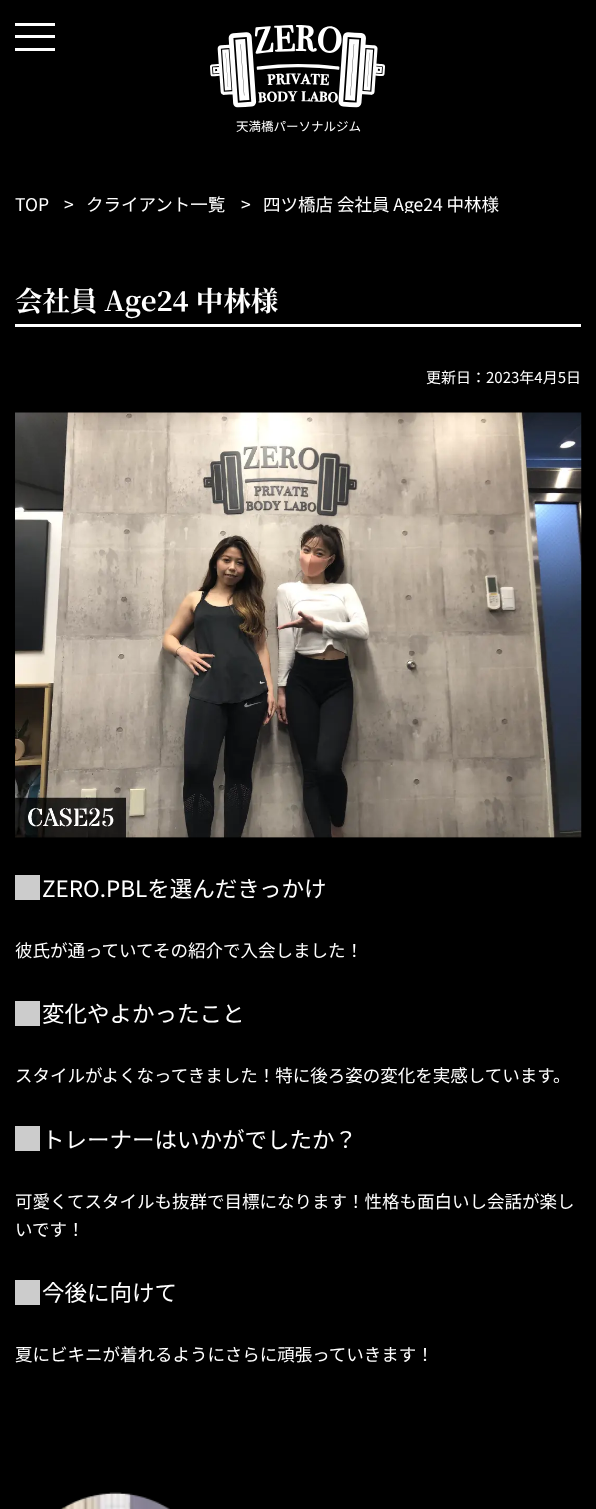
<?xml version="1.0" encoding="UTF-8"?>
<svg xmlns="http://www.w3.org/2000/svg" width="596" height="1509">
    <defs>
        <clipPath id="clip1"><rect x="15" y="195" width="566" height="18"/></clipPath>
    </defs>
    <rect width="100%" height="100%" fill="#000000"/>
    <rect x="15" y="35" width="40" height="3" fill="#FFFFFF"/>
    <rect x="15" y="23" width="40" height="3" fill="#FFFFFF"/>
    <rect x="15" y="48" width="40" height="3" fill="#FFFFFF"/>
    <image x="210" y="25" width="175" height="83" href="img_01.png"/>
    <text x="236" y="131" font-family="Noto Sans JP" font-size="12.5" fill="#FFFFFF">天満橋パーソナルジム</text>
    <text x="15" y="211" font-family="Noto Sans JP" font-size="17.5" fill="#FFFFFF">TOP</text>
    <text x="64" y="211" font-family="Noto Sans JP" font-size="17.5" fill="#FFFFFF">&gt;</text>
    <text x="86" y="211" font-family="Noto Sans JP" font-size="17.5" fill="#FFFFFF">クライアント一覧</text>
    <text x="241" y="211" font-family="Noto Sans JP" font-size="17.5" fill="#FFFFFF">&gt;</text>
    <g clip-path="url(#clip1)">
        <text x="263" y="211" font-family="Noto Sans JP" font-size="17.5" fill="#FFFFFF">四ツ橋店 会社員 Age24 中林様</text>
    </g>
    <rect x="15" y="324" width="566" height="3" fill="#FFFFFF"/>
    <text x="15" y="311" font-family="Noto Serif JP" font-size="27.5" font-weight="700" fill="#FFFFFF">会社員 Age24 中林様</text>
    <text x="426" y="383" font-family="Noto Sans JP" font-size="15" fill="#FFFFFF">更新日：2023年4月5日</text>
    <image x="15" y="412" width="567" height="426" href="img_02.png"/>
    <rect x="15" y="875" width="25" height="25" fill="#CCCCCC"/>
    <text x="42" y="897" font-family="Noto Sans JP" font-size="22.5" fill="#FFFFFF">ZERO.PBLを選んだきっかけ</text>
    <text x="15" y="957" font-family="Noto Sans JP" font-size="17.5" fill="#FFFFFF">彼氏が通っていてその紹介で入会しました！</text>
    <rect x="15" y="1001" width="25" height="25" fill="#CCCCCC"/>
    <text x="42" y="1022" font-family="Noto Sans JP" font-size="22.5" fill="#FFFFFF">変化やよかったこと</text>
    <text x="15" y="1082" font-family="Noto Sans JP" font-size="17.5" fill="#FFFFFF">スタイルがよくなってきました！特に後ろ姿の変化を実感しています。</text>
    <rect x="15" y="1126" width="25" height="25" fill="#CCCCCC"/>
    <text x="42" y="1148" font-family="Noto Sans JP" font-size="22.5" fill="#FFFFFF">トレーナーはいかがでしたか？</text>
    <text font-family="Noto Sans JP" font-size="17.5" fill="#FFFFFF">
        <tspan x="15" y="1208">可愛くてスタイルも抜群で目標になります！性格も面白いし会話が楽し</tspan>
        <tspan x="15" y="1236">いです！</tspan>
    </text>
    <rect x="15" y="1280" width="25" height="25" fill="#CCCCCC"/>
    <text x="42" y="1301" font-family="Noto Sans JP" font-size="22.5" fill="#FFFFFF">今後に向けて</text>
    <text x="15" y="1361" font-family="Noto Sans JP" font-size="17.5" fill="#FFFFFF">夏にビキニが着れるようにさらに頑張っていきます！</text>
    <image x="60" y="1492" width="110" height="17" href="img_03.png"/>
</svg>
